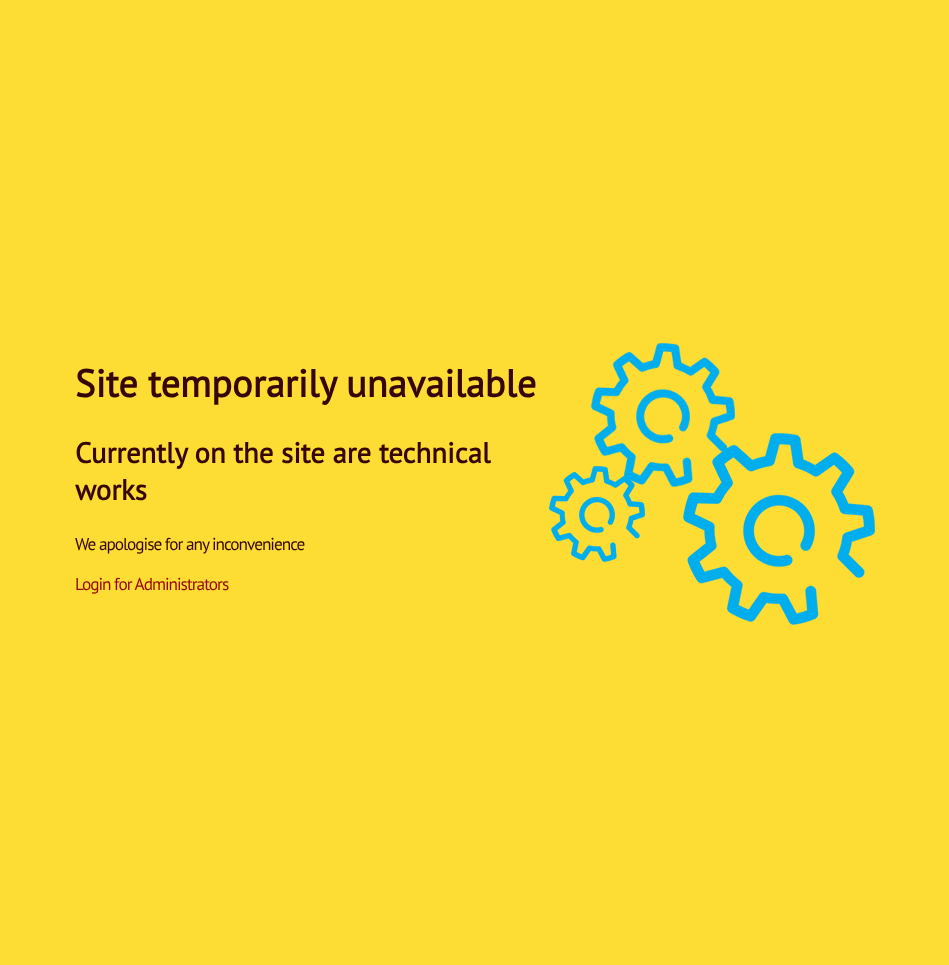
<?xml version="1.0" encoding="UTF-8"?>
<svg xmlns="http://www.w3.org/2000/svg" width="949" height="965">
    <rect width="100%" height="100%" fill="#FDDD34"/>
    <text x="75" y="397" font-family="PT Sans" font-size="38.4" font-weight="700" fill="#360505">Site temporarily unavailable</text>
    <text font-family="PT Sans" font-size="28.75" font-weight="700" fill="#360505">
        <tspan x="75" y="463">Currently on the site are technical</tspan>
        <tspan x="75" y="500">works</tspan>
    </text>
    <text x="75" y="550" font-family="PT Sans" font-size="17.25" letter-spacing="-1" fill="#360505">We apologise for any inconvenience</text>
    <text x="75" y="590" font-family="PT Sans" font-size="17.25" letter-spacing="-1" fill="#950505">Login for Administrators</text>
    <image x="683" y="433" width="192" height="192" href="img_03.png"/>
    <image x="591" y="343" width="144" height="144" href="img_01.png"/>
    <image x="549" y="466" width="96" height="96" href="img_02.png"/>
</svg>
